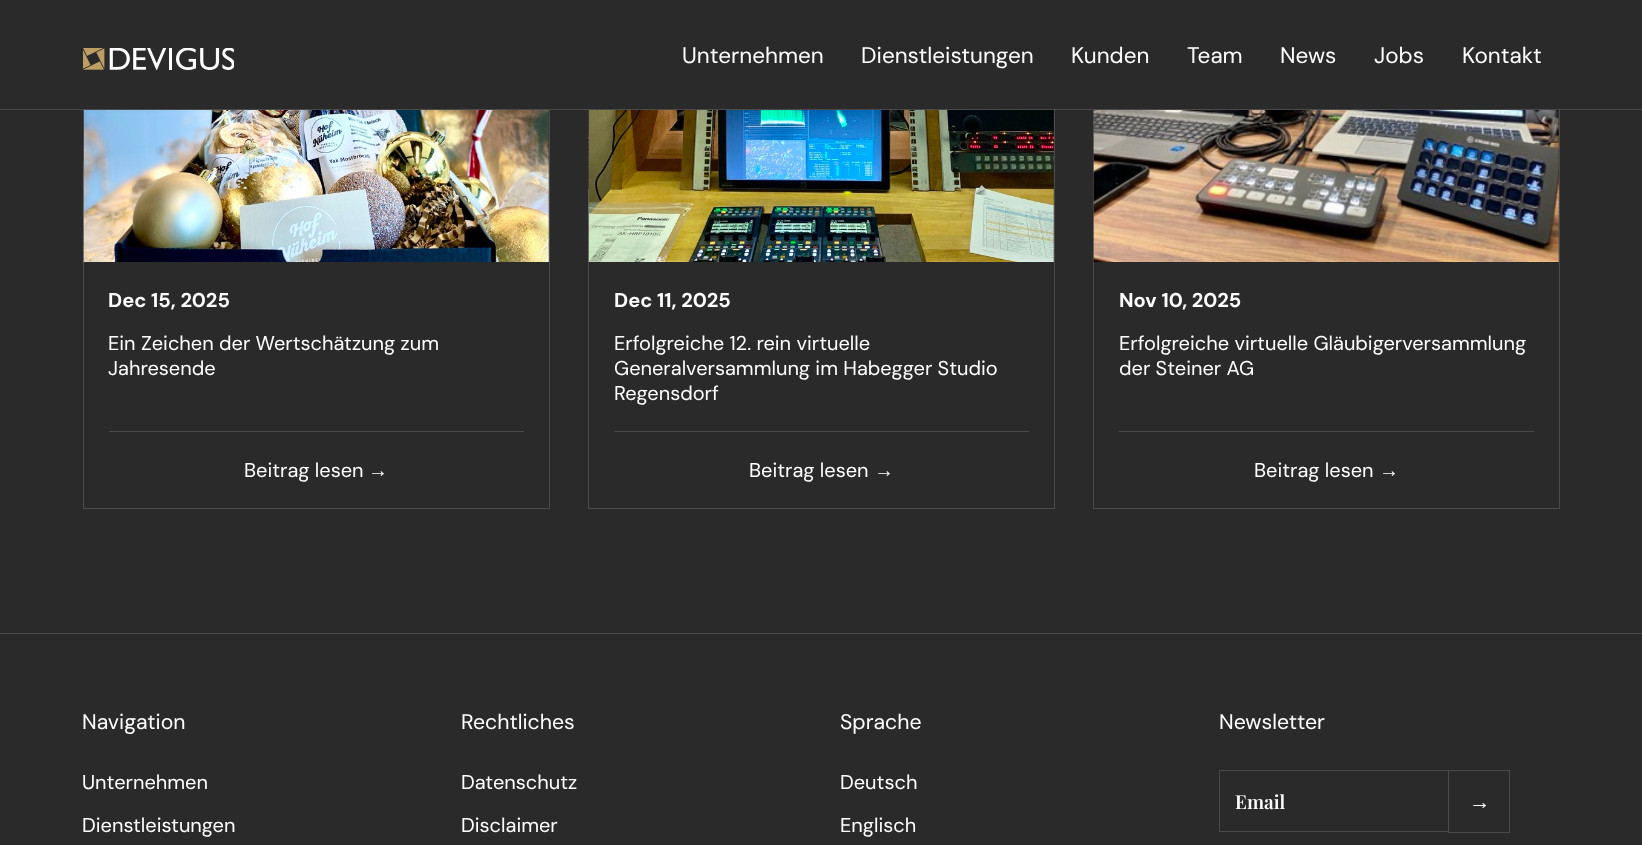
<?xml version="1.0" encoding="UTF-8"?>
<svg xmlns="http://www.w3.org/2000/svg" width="1642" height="845">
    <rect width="100%" height="100%" fill="#2A2A2A"/>
    <rect x="83.5" y="-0.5" width="466" height="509" fill="none" stroke="#4A4A4A"/>
    <rect x="588.5" y="-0.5" width="466" height="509" fill="none" stroke="#4A4A4A"/>
    <rect x="1093.5" y="-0.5" width="466" height="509" fill="none" stroke="#4A4A4A"/>
    <rect x="83" y="0" width="1477" height="109" fill="#2A2A2A"/>
    <rect x="0" y="109" width="1642" height="1" fill="#4A4A4A"/>
    <image x="83" y="48" width="151" height="22" href="img_01.png"/>
    <text x="682" y="63" font-family="DM Sans" font-size="22.5" fill="#FFFFFF">Unternehmen</text>
    <text x="861" y="63" font-family="DM Sans" font-size="22.5" fill="#FFFFFF">Dienstleistungen</text>
    <text x="1071" y="63" font-family="DM Sans" font-size="22.5" fill="#FFFFFF">Kunden</text>
    <text x="1187" y="63" font-family="DM Sans" font-size="22.5" fill="#FFFFFF">Team</text>
    <text x="1280" y="63" font-family="DM Sans" font-size="22.5" fill="#FFFFFF">News</text>
    <text x="1374" y="63" font-family="DM Sans" font-size="22.5" fill="#FFFFFF">Jobs</text>
    <text x="1462" y="63" font-family="DM Sans" font-size="22.5" fill="#FFFFFF">Kontakt</text>
    <rect x="0" y="633" width="1642" height="1" fill="#4A4A4A"/>
    <image x="83" y="110" width="466" height="152" href="img_02.png"/>
    <text x="108" y="307" font-family="DM Sans" font-size="20" font-weight="700" fill="#FFFFFF">Dec 15, 2025</text>
    <text font-family="DM Sans" font-size="20" fill="#FFFFFF">
        <tspan x="108" y="350">Ein Zeichen der Wertschätzung zum</tspan>
        <tspan x="108" y="375">Jahresende</tspan>
    </text>
    <rect x="109" y="431" width="415" height="1" fill="#4A4A4A"/>
    <text x="244" y="477" font-family="DM Sans" font-size="20" fill="#FFFFFF">Beitrag lesen</text>
    <text x="368" y="477" font-family="Liberation Sans" font-size="20" fill="#FFFFFF">→</text>
    <image x="588" y="110" width="466" height="152" href="img_03.png"/>
    <text x="614" y="307" font-family="DM Sans" font-size="20" font-weight="700" fill="#FFFFFF">Dec 11, 2025</text>
    <text font-family="DM Sans" font-size="20" fill="#FFFFFF">
        <tspan x="614" y="350">Erfolgreiche 12. rein virtuelle</tspan>
        <tspan x="614" y="375">Generalversammlung im Habegger Studio</tspan>
        <tspan x="614" y="400">Regensdorf</tspan>
    </text>
    <rect x="614" y="431" width="415" height="1" fill="#4A4A4A"/>
    <text x="749" y="477" font-family="DM Sans" font-size="20" fill="#FFFFFF">Beitrag lesen</text>
    <text x="874" y="477" font-family="Liberation Sans" font-size="20" fill="#FFFFFF">→</text>
    <image x="1093" y="110" width="466" height="152" href="img_04.png"/>
    <text x="1119" y="307" font-family="DM Sans" font-size="20" font-weight="700" fill="#FFFFFF">Nov 10, 2025</text>
    <text font-family="DM Sans" font-size="20" fill="#FFFFFF">
        <tspan x="1119" y="350">Erfolgreiche virtuelle Gläubigerversammlung</tspan>
        <tspan x="1119" y="375">der Steiner AG</tspan>
    </text>
    <rect x="1119" y="431" width="415" height="1" fill="#4A4A4A"/>
    <text x="1254" y="477" font-family="DM Sans" font-size="20" fill="#FFFFFF">Beitrag lesen</text>
    <text x="1379" y="477" font-family="Liberation Sans" font-size="20" fill="#FFFFFF">→</text>
    <text x="82" y="729" font-family="DM Sans" font-size="21.25" fill="#FFFFFF">Navigation</text>
    <text x="82" y="789" font-family="DM Sans" font-size="20" fill="#FFFFFF">Unternehmen</text>
    <text x="82" y="832" font-family="DM Sans" font-size="20" fill="#FFFFFF">Dienstleistungen</text>
    <text x="461" y="729" font-family="DM Sans" font-size="21.25" fill="#FFFFFF">Rechtliches</text>
    <text x="461" y="789" font-family="DM Sans" font-size="20" fill="#FFFFFF">Datenschutz</text>
    <text x="461" y="832" font-family="DM Sans" font-size="20" fill="#FFFFFF">Disclaimer</text>
    <text x="840" y="729" font-family="DM Sans" font-size="21.25" fill="#FFFFFF">Sprache</text>
    <text x="840" y="789" font-family="DM Sans" font-size="20" fill="#FFFFFF">Deutsch</text>
    <text x="840" y="832" font-family="DM Sans" font-size="20" fill="#FFFFFF">Englisch</text>
    <text x="1219" y="729" font-family="DM Sans" font-size="21.25" fill="#FFFFFF">Newsletter</text>
    <path d="M 1219 770 H 1448 V 771 H 1220 Z" fill="#4A4A4A"/>
    <path d="M 1448 832 H 1219 L 1220 831 H 1448 Z" fill="#4A4A4A"/>
    <path d="M 1219 832 V 770 L 1220 771 V 831 Z" fill="#FFFFFF" fill-opacity="0.15"/>
    <text x="1235" y="809" font-family="Playfair Display" font-size="19" font-weight="600" fill="#FFFFFF">Email</text>
    <rect x="1448.5" y="770.5" width="61" height="62" fill="none" stroke="#4A4A4A"/>
    <text x="1469" y="809" font-family="Liberation Sans" font-size="21.25" fill="#FFFFFF">→</text>
</svg>
